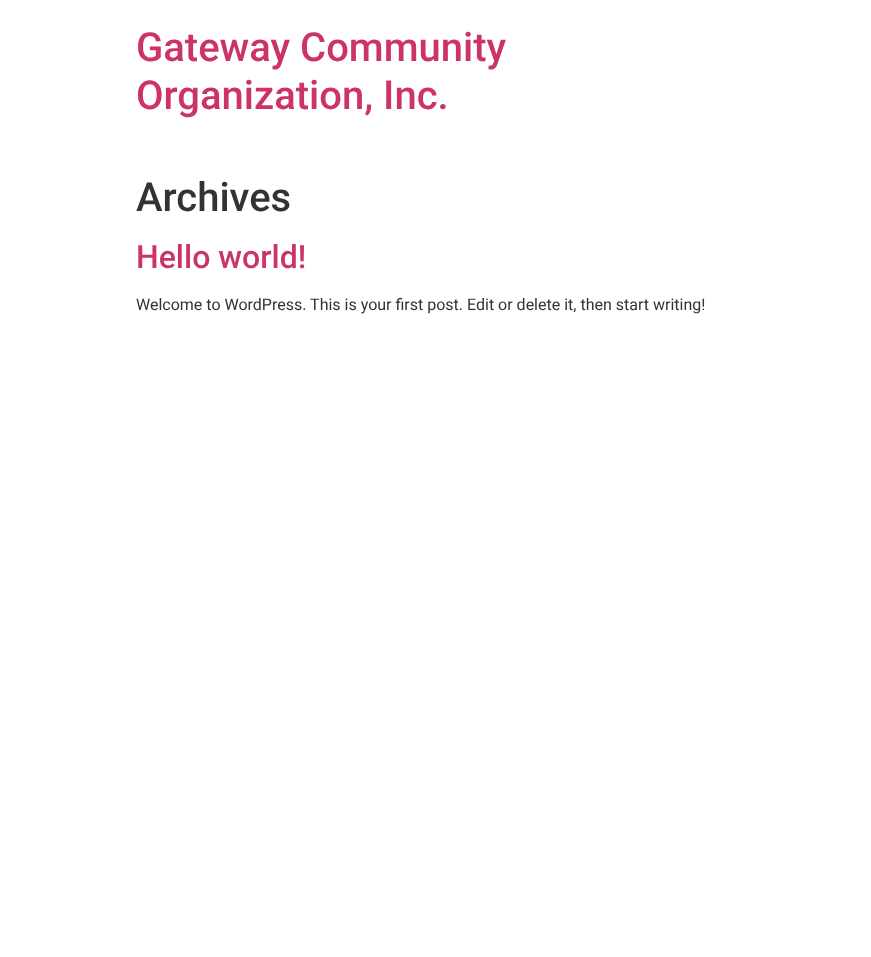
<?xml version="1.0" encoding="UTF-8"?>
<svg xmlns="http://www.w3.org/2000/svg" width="871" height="957">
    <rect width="100%" height="100%" fill="#FFFFFF"/>
    <text font-family="Roboto" font-size="40" font-weight="500" fill="#CC3366">
        <tspan x="136" y="61">Gateway Community</tspan>
        <tspan x="136" y="109">Organization, Inc.</tspan>
    </text>
    <text x="136" y="211" font-family="Roboto" font-size="40" font-weight="500" fill="#333333">Archives</text>
    <text x="136" y="268" font-family="Roboto" font-size="32" font-weight="500" fill="#CC3366">Hello world!</text>
    <text x="136" y="310" font-family="Roboto" font-size="16" fill="#333333">Welcome to WordPress. This is your first post. Edit or delete it, then start writing!</text>
</svg>
